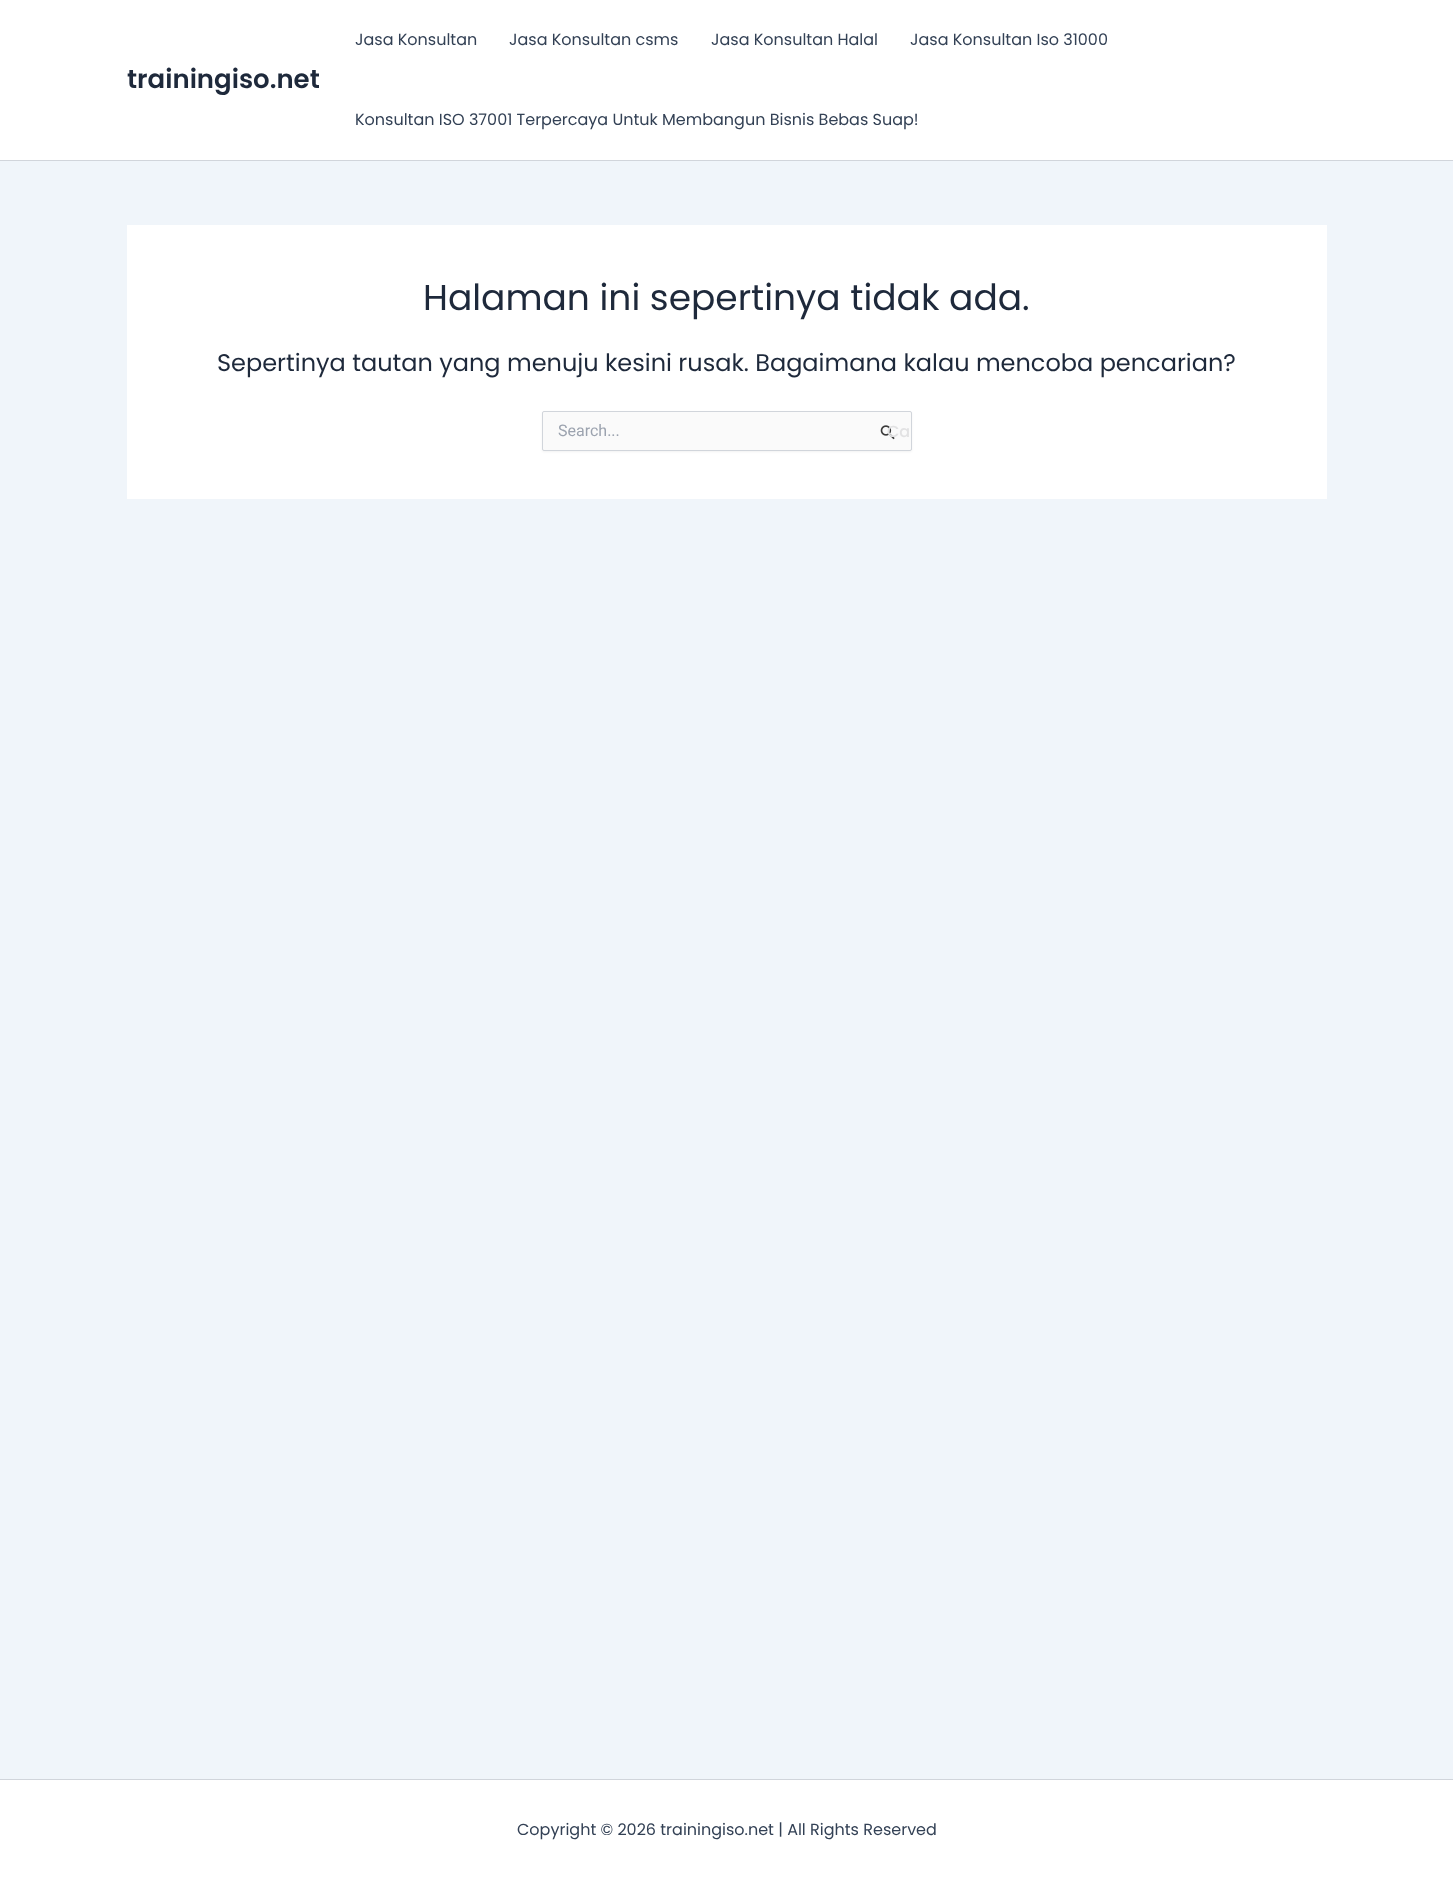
<?xml version="1.0" encoding="UTF-8"?>
<svg xmlns="http://www.w3.org/2000/svg" width="1453" height="1880">
    <defs>
        <filter id="blur1" x="-50%" y="-200%" width="200%" height="500%"><feGaussianBlur stdDeviation="1"/></filter>
    </defs>
    <rect width="100%" height="100%" fill="#F0F5FA"/>
    <rect x="0" y="0" width="1453" height="160" fill="#FFFFFF"/>
    <rect x="0" y="160" width="1453" height="1" fill="#D1D5DB"/>
    <text x="127" y="88" font-family="Poppins" font-size="26" font-weight="600" fill="#1E293B">trainingiso.net</text>
    <text x="355" y="45" font-family="Poppins" font-size="16" fill="#334155">Jasa Konsultan</text>
    <text x="509" y="45" font-family="Poppins" font-size="16" fill="#334155">Jasa Konsultan csms</text>
    <text x="711" y="45" font-family="Poppins" font-size="16" fill="#334155">Jasa Konsultan Halal</text>
    <text x="910" y="45" font-family="Poppins" font-size="16" fill="#334155">Jasa Konsultan Iso 31000</text>
    <text x="355" y="125" font-family="Poppins" font-size="16" fill="#334155">Konsultan ISO 37001 Terpercaya Untuk Membangun Bisnis Bebas Suap!</text>
    <rect x="127" y="225" width="1200" height="274" fill="#FFFFFF"/>
    <text x="423" y="310" font-family="Poppins" font-size="36" fill="#1E293B">Halaman ini sepertinya tidak ada.</text>
    <text x="217" y="371" font-family="Poppins" font-size="24" fill="#1E293B">Sepertinya tautan yang menuju kesini rusak. Bagaimana kalau mencoba pencarian?</text>
    <rect x="542" y="412" width="370" height="40" rx="2" fill="#000000" fill-opacity="0.05" filter="url(#blur1)"/>
    <rect x="542.5" y="411.5" width="369" height="39" rx="1.5" fill="#FAFAFA" stroke="#D1D5DB"/>
    <text x="558" y="436" font-family="Roboto" font-size="16" fill="#9CA3AF">Search...</text>
    <image x="880" y="425" width="15" height="15" href="img_01.png"/>
    <text x="887" y="437" font-family="Poppins" font-size="16" font-weight="500" fill="#E2E2E3">Ca</text>
    <rect x="0" y="1780" width="1453" height="100" fill="#FFFFFF"/>
    <rect x="0" y="1779" width="1453" height="1" fill="#D1D5DB"/>
    <text x="517" y="1835" font-family="Poppins" font-size="16" fill="#334155">Copyright © 2026 trainingiso.net | All Rights Reserved</text>
</svg>
